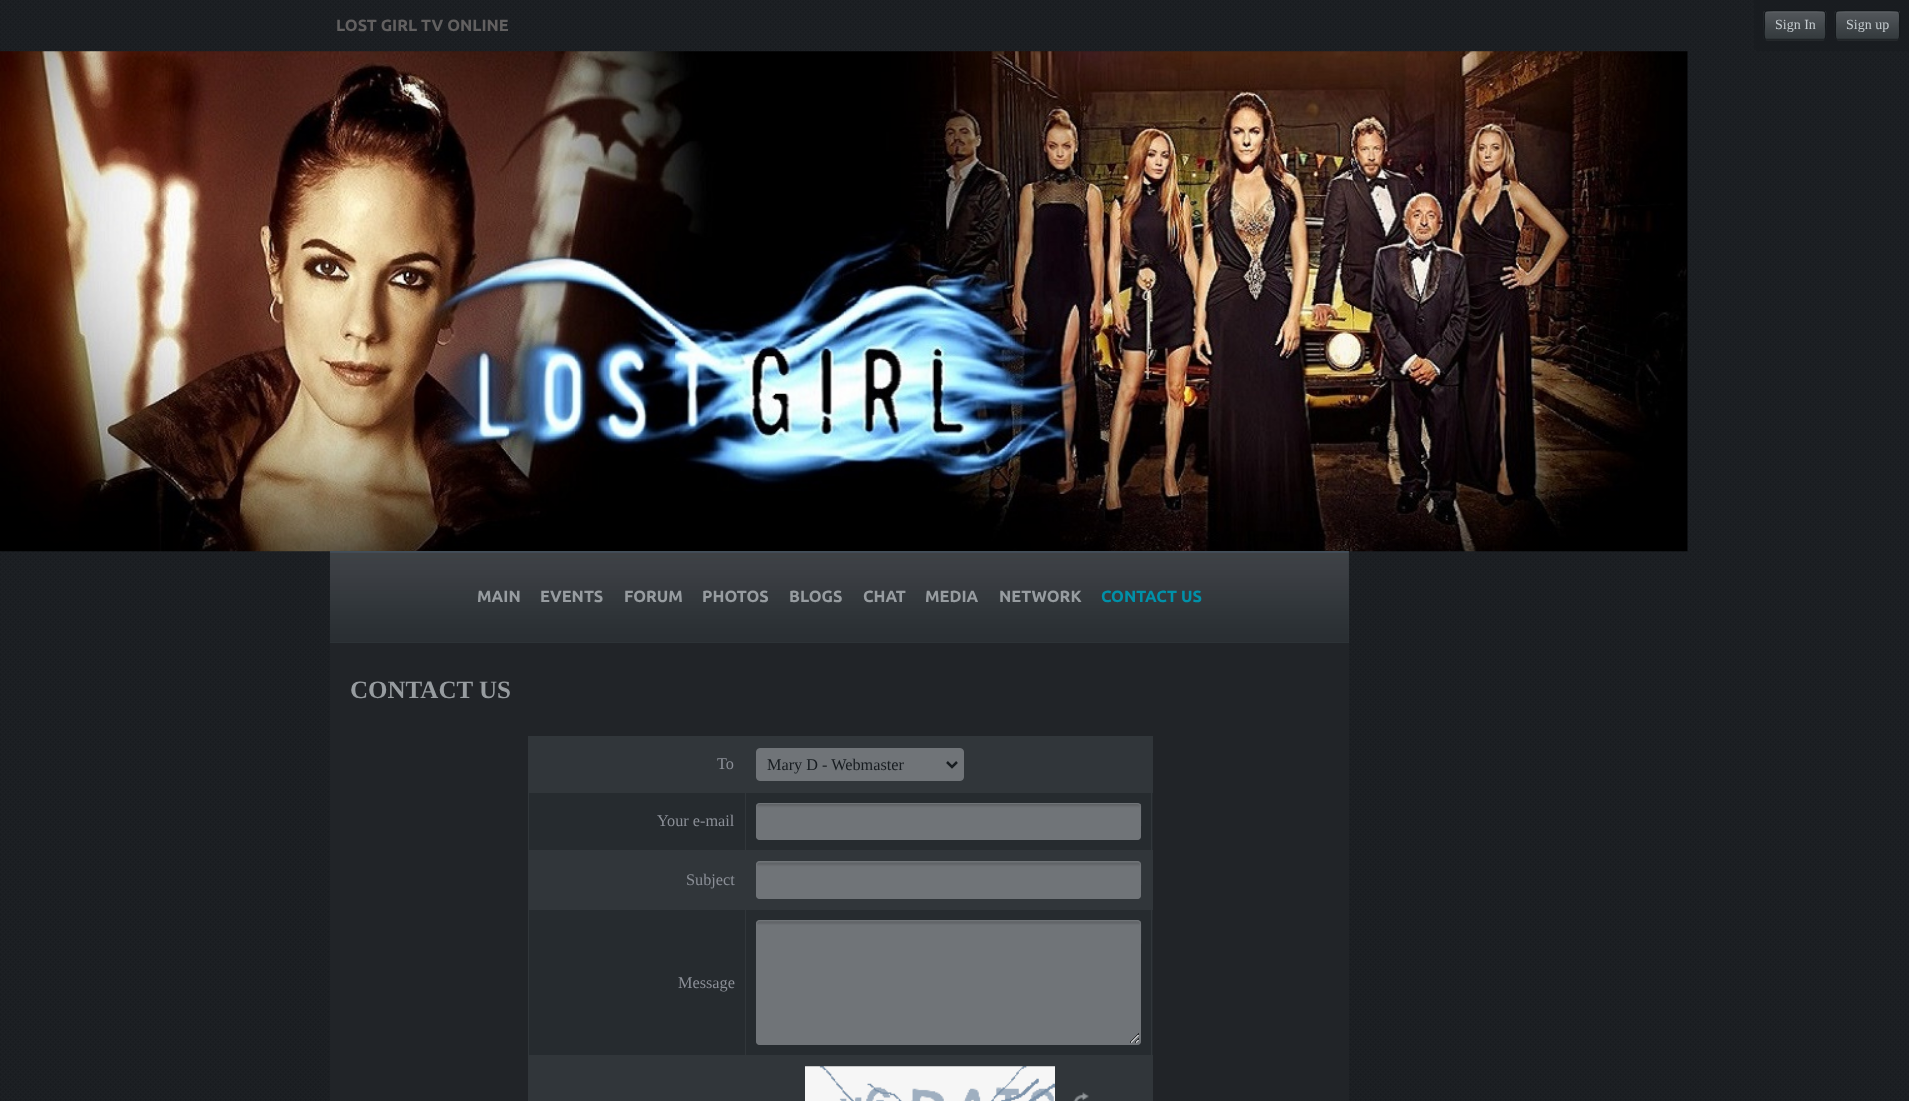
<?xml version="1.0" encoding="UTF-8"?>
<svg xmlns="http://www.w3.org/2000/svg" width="1909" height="1101">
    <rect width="100%" height="100%" fill="#FFFFFF"/>
    <image x="0" y="0" width="1909" height="1101" href="img_01.png"/>
    <text x="336" y="31" font-family="Ubuntu" font-size="16.25" font-weight="700" fill="#626060">LOST GIRL TV ONLINE</text>
    <path d="M 1754 0 H 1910 V 51 H 1756.5 C 1755 51 1754 50 1754 48.5 Z" fill="#191C20"/>
    <rect x="1755" y="50" width="1" height="1" fill="#1D2024"/>
    <image x="1763" y="11" width="64" height="29" href="img_02.png"/>
    <path d="M 1824.5 39.5 L 1823 40.5 H 1767 L 1765.5 39.5" fill="none" stroke="#25282B" stroke-width="1.2"/>
    <path d="M 1765.5 39.5 C 1763 37.5 1764.5 28.5 1764.5 25.5 C 1764.5 9.5 1761.5 10.5 1776.5 10.5 H 1813.5 C 1828.5 10.5 1825.5 9.5 1825.5 25.5 C 1825.5 28.5 1827 37.5 1824.5 39.5" fill="none" stroke="#14181B" stroke-width="1.2"/>
    <text x="1775" y="29" font-family="Liberation Serif" font-size="14" fill="#C5CCD0">Sign In</text>
    <image x="1834" y="11" width="66" height="29" href="img_03.png"/>
    <path d="M 1898.5 39.5 L 1896.5 40.5 H 1838.5 L 1836.5 39.5" fill="none" stroke="#25282B" stroke-width="1.2"/>
    <path d="M 1836.5 39.5 C 1834.5 37.5 1835.5 28.5 1835.5 25.5 C 1835.5 9.5 1832.5 10.5 1848.5 10.5 H 1886.5 C 1902.5 10.5 1899.5 9.5 1899.5 25.5 C 1899.5 28.5 1900.5 37.5 1898.5 39.5" fill="none" stroke="#14181B" stroke-width="1.2"/>
    <text x="1846" y="29" font-family="Liberation Serif" font-size="14" fill="#C5CCD0">Sign up</text>
    <image x="0" y="51" width="1688" height="501" href="img_04.png"/>
    <rect x="330" y="551" width="1019" height="92" fill="#33383C"/>
    <image x="330" y="551" width="1019" height="92" href="img_05.png"/>
    <text x="477" y="602" font-family="Ubuntu" font-size="16.25" font-weight="700" fill="#979CA0">MAIN</text>
    <text x="540" y="602" font-family="Ubuntu" font-size="16.25" font-weight="700" fill="#979CA0">EVENTS</text>
    <text x="624" y="602" font-family="Ubuntu" font-size="16.25" font-weight="700" fill="#979CA0">FORUM</text>
    <text x="702" y="602" font-family="Ubuntu" font-size="16.25" font-weight="700" fill="#979CA0">PHOTOS</text>
    <text x="789" y="602" font-family="Ubuntu" font-size="16.25" font-weight="700" fill="#979CA0">BLOGS</text>
    <text x="863" y="602" font-family="Ubuntu" font-size="16.25" font-weight="700" fill="#979CA0">CHAT</text>
    <text x="925" y="602" font-family="Ubuntu" font-size="16.25" font-weight="700" fill="#979CA0">MEDIA</text>
    <text x="999" y="602" font-family="Ubuntu" font-size="16.25" font-weight="700" fill="#979CA0">NETWORK</text>
    <text x="1101" y="602" font-family="Ubuntu" font-size="16.25" font-weight="700" fill="#0091A9">CONTACT US</text>
    <rect x="330" y="643" width="1019" height="458" fill="#212428"/>
    <text x="350" y="698" font-family="Liberation Serif" font-size="25" font-weight="700" fill="#979CA0">CONTACT US</text>
    <rect x="528" y="736" width="625" height="57" fill="#31363A"/>
    <text x="717" y="769" font-family="Liberation Serif" font-size="16.25" fill="#8B8F97">To</text>
    <rect x="756.5" y="748.5" width="207" height="32" rx="3.5" fill="#707478" stroke="#707478"/>
    <path d="M 947 762 L 952 767 L 957 762" fill="none" stroke="#171C20" stroke-width="2.5"/>
    <text x="767" y="770" font-family="Liberation Serif" font-size="16.25" fill="#171C20">Mary D - Webmaster</text>
    <rect x="529" y="793" width="624" height="57" fill="#262B2F"/>
    <rect x="745" y="793" width="1" height="58" fill="#31363A"/>
    <rect x="528" y="850" width="218" height="1" fill="#31363A"/>
    <rect x="528" y="793" width="1" height="58" fill="#31363A"/>
    <text x="657" y="826" font-family="Liberation Serif" font-size="16.25" fill="#8B8F97">Your e-mail</text>
    <rect x="1151" y="793" width="1" height="58" fill="#31363A"/>
    <rect x="746" y="850" width="407" height="1" fill="#31363A"/>
    <rect x="756" y="803" width="385" height="37" rx="4" fill="#707478"/>
    <image x="756" y="803" width="386" height="23" href="img_06.png"/>
    <rect x="756.5" y="803.5" width="384" height="36" rx="3.5" fill="none" stroke="#707478"/>
    <rect x="528" y="851" width="625" height="59" fill="#31363A"/>
    <text x="686" y="885" font-family="Liberation Serif" font-size="16.25" fill="#8B8F97">Subject</text>
    <rect x="756" y="861" width="385" height="38" rx="4" fill="#707478"/>
    <image x="756" y="862" width="386" height="23" href="img_07.png"/>
    <rect x="756.5" y="861.5" width="384" height="37" rx="3.5" fill="none" stroke="#707478"/>
    <rect x="529" y="910" width="624" height="145" fill="#262B2F"/>
    <rect x="745" y="910" width="1" height="146" fill="#31363A"/>
    <rect x="528" y="1055" width="218" height="1" fill="#31363A"/>
    <rect x="528" y="910" width="1" height="146" fill="#31363A"/>
    <text x="678" y="988" font-family="Liberation Serif" font-size="16.25" fill="#8B8F97">Message</text>
    <rect x="1151" y="910" width="1" height="146" fill="#31363A"/>
    <rect x="746" y="1055" width="407" height="1" fill="#31363A"/>
    <rect x="756" y="920" width="385" height="125" rx="4" fill="#707478"/>
    <image x="756" y="921" width="386" height="122" href="img_08.png"/>
    <rect x="756.5" y="920.5" width="384" height="124" rx="3.5" fill="none" stroke="#707478"/>
    <rect x="528" y="1056" width="625" height="45" fill="#31363A"/>
    <image x="805" y="1066" width="250" height="35" href="img_09.png"/>
    <image x="1073" y="1092" width="16" height="9" href="img_10.png"/>
</svg>
